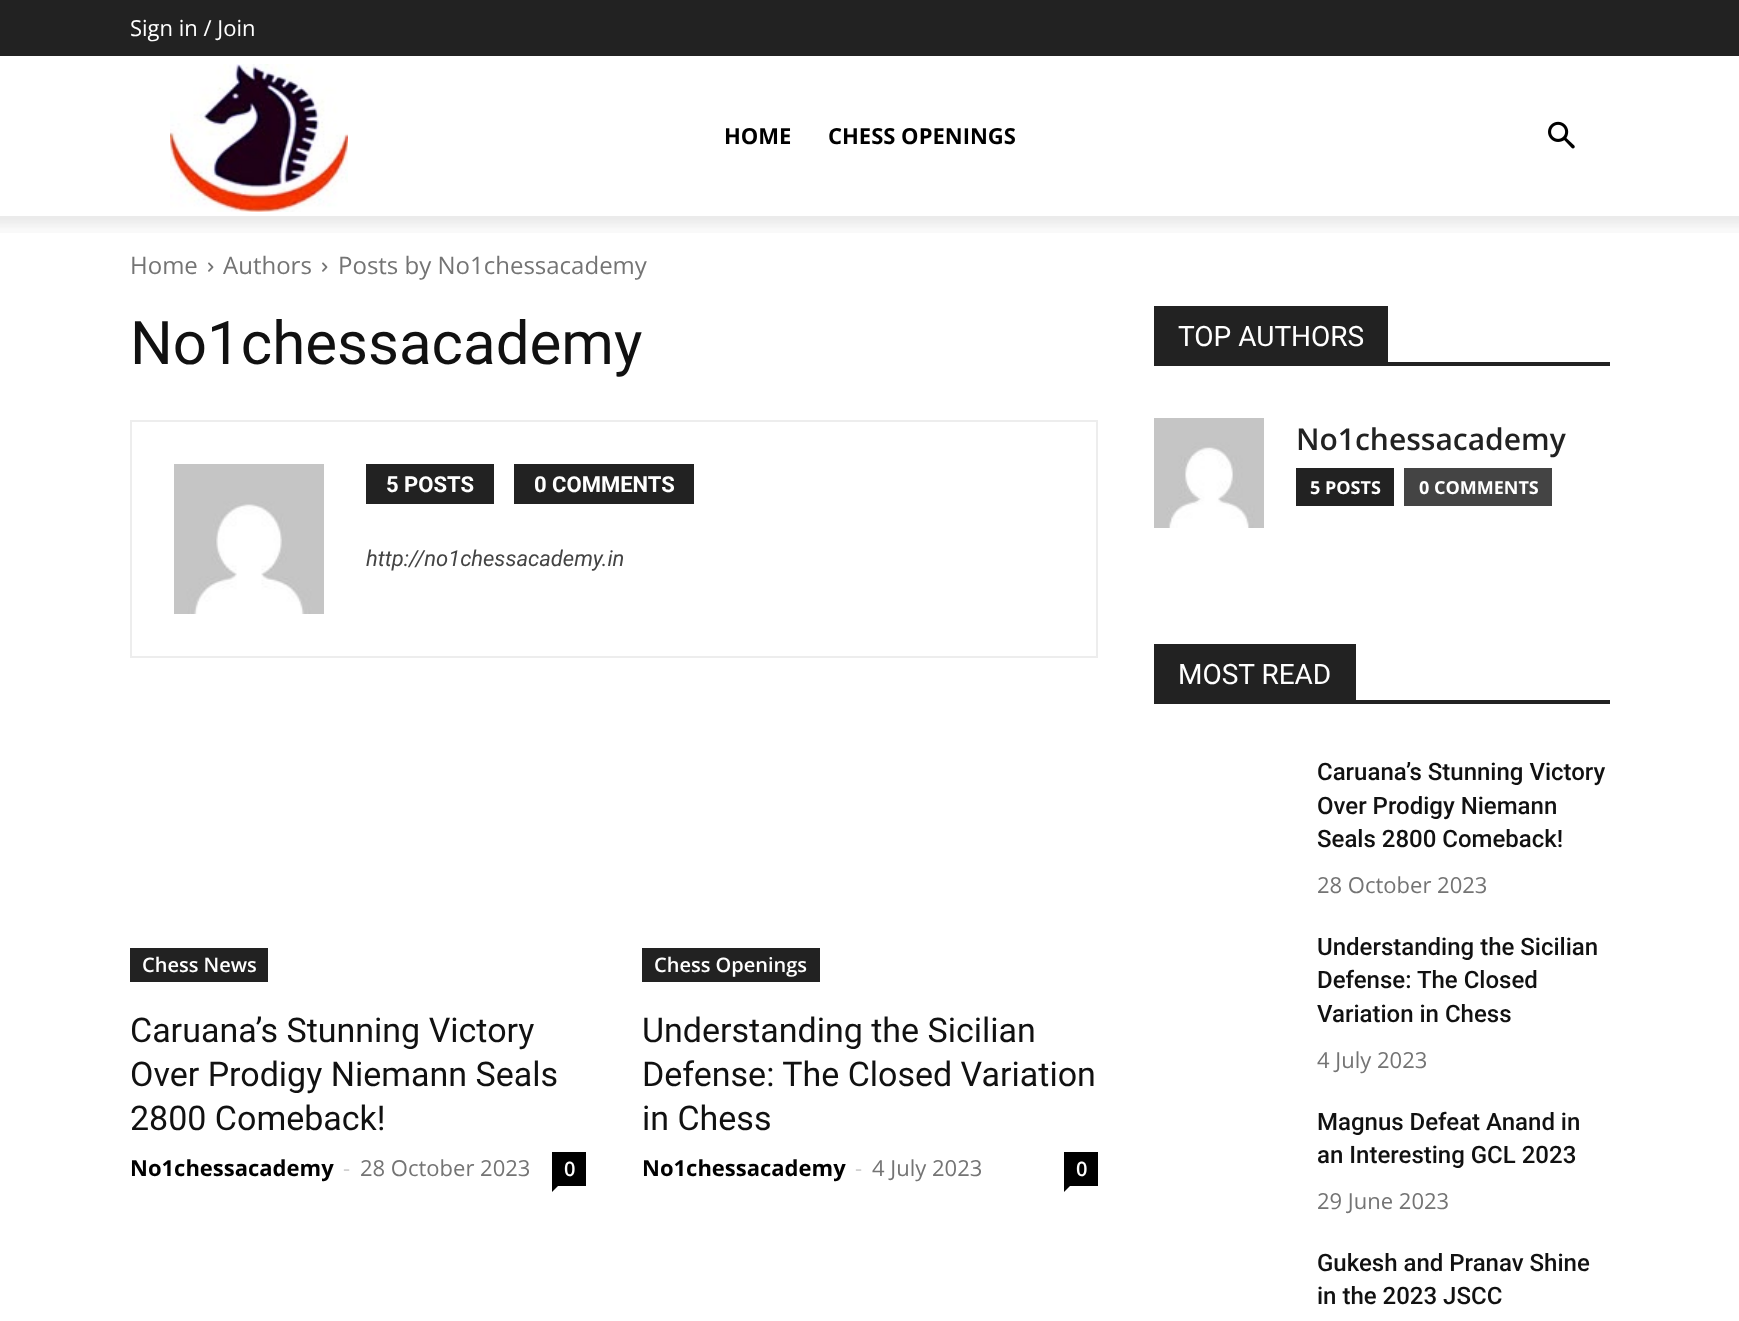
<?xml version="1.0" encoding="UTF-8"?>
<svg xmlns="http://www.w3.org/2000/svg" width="1739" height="1321">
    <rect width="100%" height="100%" fill="#FFFFFF"/>
    <rect x="0" y="0" width="1739" height="56" fill="#222222"/>
    <text x="130" y="36" font-family="Open Sans" font-size="22" fill="#FFFFFF">Sign in / Join</text>
    <image x="170" y="64" width="178" height="148" href="img_01.png"/>
    <text x="724" y="144" font-family="Open Sans" font-size="22" font-weight="700" fill="#000000">HOME</text>
    <text x="828" y="144" font-family="Open Sans" font-size="22" font-weight="700" fill="#000000">CHESS OPENINGS</text>
    <image x="1548" y="121" width="27" height="28" href="img_02.png"/>
    <image x="0" y="216" width="1739" height="17" href="img_03.png"/>
    <text x="130" y="274" font-family="Open Sans" font-size="24" fill="#747474">Home</text>
    <image x="208" y="262" width="6" height="10" href="img_04.png"/>
    <text x="223" y="274" font-family="Open Sans" font-size="24" fill="#747474">Authors</text>
    <image x="322" y="262" width="6" height="10" href="img_04.png"/>
    <text x="338" y="274" font-family="Open Sans" font-size="24" fill="#747474">Posts by No1chessacademy</text>
    <text x="130" y="364" font-family="Roboto" font-size="60" fill="#111111">No1chessacademy</text>
    <rect x="131" y="421" width="966" height="236" fill="none" stroke="#EDEDED" stroke-width="2"/>
    <image x="174" y="464" width="150" height="150" href="img_05.png"/>
    <rect x="366" y="464" width="128" height="40" fill="#222222"/>
    <text x="386" y="492" font-family="Roboto" font-size="22" font-weight="700" fill="#FFFFFF">5 POSTS</text>
    <rect x="514" y="464" width="180" height="40" fill="#222222"/>
    <text x="534" y="492" font-family="Roboto" font-size="22" font-weight="700" fill="#FFFFFF">0 COMMENTS</text>
    <text x="366" y="566" font-family="Roboto" font-size="22" font-style="italic" fill="#444444">http://no1chessacademy.in</text>
    <rect x="130" y="948" width="138" height="34" fill="#222222"/>
    <text x="142" y="972" font-family="Open Sans" font-size="20" font-weight="600" fill="#FFFFFF">Chess News</text>
    <text font-family="Roboto" font-size="34" fill="#111111">
        <tspan x="130" y="1042">Caruana’s Stunning Victory</tspan>
        <tspan x="130" y="1086">Over Prodigy Niemann Seals</tspan>
        <tspan x="130" y="1130">2800 Comeback!</tspan>
    </text>
    <text x="130" y="1176" font-family="Open Sans" font-size="22" font-weight="700" fill="#000000">No1chessacademy</text>
    <text x="343" y="1176" font-family="Open Sans" font-size="22" fill="#CCCCCC">-</text>
    <text x="360" y="1176" font-family="Open Sans" font-size="22" fill="#747474">28 October 2023</text>
    <rect x="552" y="1152" width="34" height="34" fill="#000000"/>
    <text x="564" y="1176" font-family="Open Sans" font-size="20" font-weight="600" fill="#FFFFFF">0</text>
    <path d="M 552 1186 H 558 L 552 1192 Z" fill="#000000"/>
    <rect x="642" y="948" width="178" height="34" fill="#222222"/>
    <text x="654" y="972" font-family="Open Sans" font-size="20" font-weight="600" fill="#FFFFFF">Chess Openings</text>
    <text font-family="Roboto" font-size="34" fill="#111111">
        <tspan x="642" y="1042">Understanding the Sicilian</tspan>
        <tspan x="642" y="1086">Defense: The Closed Variation</tspan>
        <tspan x="642" y="1130">in Chess</tspan>
    </text>
    <text x="642" y="1176" font-family="Open Sans" font-size="22" font-weight="700" fill="#000000">No1chessacademy</text>
    <text x="855" y="1176" font-family="Open Sans" font-size="22" fill="#CCCCCC">-</text>
    <text x="872" y="1176" font-family="Open Sans" font-size="22" fill="#747474">4 July 2023</text>
    <rect x="1064" y="1152" width="34" height="34" fill="#000000"/>
    <text x="1076" y="1176" font-family="Open Sans" font-size="20" font-weight="600" fill="#FFFFFF">0</text>
    <path d="M 1064 1186 H 1070 L 1064 1192 Z" fill="#000000"/>
    <rect x="1154" y="362" width="456" height="4" fill="#222222"/>
    <rect x="1154" y="306" width="234" height="56" fill="#222222"/>
    <text x="1178" y="346" font-family="Roboto" font-size="28" fill="#FFFFFF">TOP AUTHORS</text>
    <image x="1154" y="418" width="110" height="110" href="img_06.png"/>
    <text x="1296" y="450" font-family="Open Sans" font-size="30" font-weight="600" fill="#222222">No1chessacademy</text>
    <rect x="1296" y="468" width="98" height="38" fill="#222222"/>
    <text x="1310" y="494" font-family="Open Sans" font-size="18" font-weight="700" fill="#FFFFFF">5 POSTS</text>
    <rect x="1404" y="468" width="148" height="38" fill="#444444"/>
    <text x="1419" y="494" font-family="Open Sans" font-size="18" font-weight="700" fill="#FFFFFF">0 COMMENTS</text>
    <rect x="1154" y="700" width="456" height="4" fill="#222222"/>
    <rect x="1154" y="644" width="202" height="56" fill="#222222"/>
    <text x="1178" y="684" font-family="Roboto" font-size="28" fill="#FFFFFF">MOST READ</text>
    <text font-family="Roboto" font-size="24" font-weight="500" fill="#111111">
        <tspan x="1317" y="780">Caruana’s Stunning Victory</tspan>
        <tspan x="1317" y="814">Over Prodigy Niemann</tspan>
        <tspan x="1317" y="847">Seals 2800 Comeback!</tspan>
    </text>
    <text x="1317" y="893" font-family="Open Sans" font-size="22" fill="#747474">28 October 2023</text>
    <text font-family="Roboto" font-size="24" font-weight="500" fill="#111111">
        <tspan x="1317" y="955">Understanding the Sicilian</tspan>
        <tspan x="1317" y="988">Defense: The Closed</tspan>
        <tspan x="1317" y="1022">Variation in Chess</tspan>
    </text>
    <text x="1317" y="1068" font-family="Open Sans" font-size="22" fill="#747474">4 July 2023</text>
    <text font-family="Roboto" font-size="24" font-weight="500" fill="#111111">
        <tspan x="1317" y="1130">Magnus Defeat Anand in</tspan>
        <tspan x="1317" y="1163">an Interesting GCL 2023</tspan>
    </text>
    <text x="1317" y="1209" font-family="Open Sans" font-size="22" fill="#747474">29 June 2023</text>
    <text font-family="Roboto" font-size="24" font-weight="500" fill="#111111">
        <tspan x="1317" y="1271">Gukesh and Pranav Shine</tspan>
        <tspan x="1317" y="1304">in the 2023 JSCC</tspan>
    </text>
</svg>
